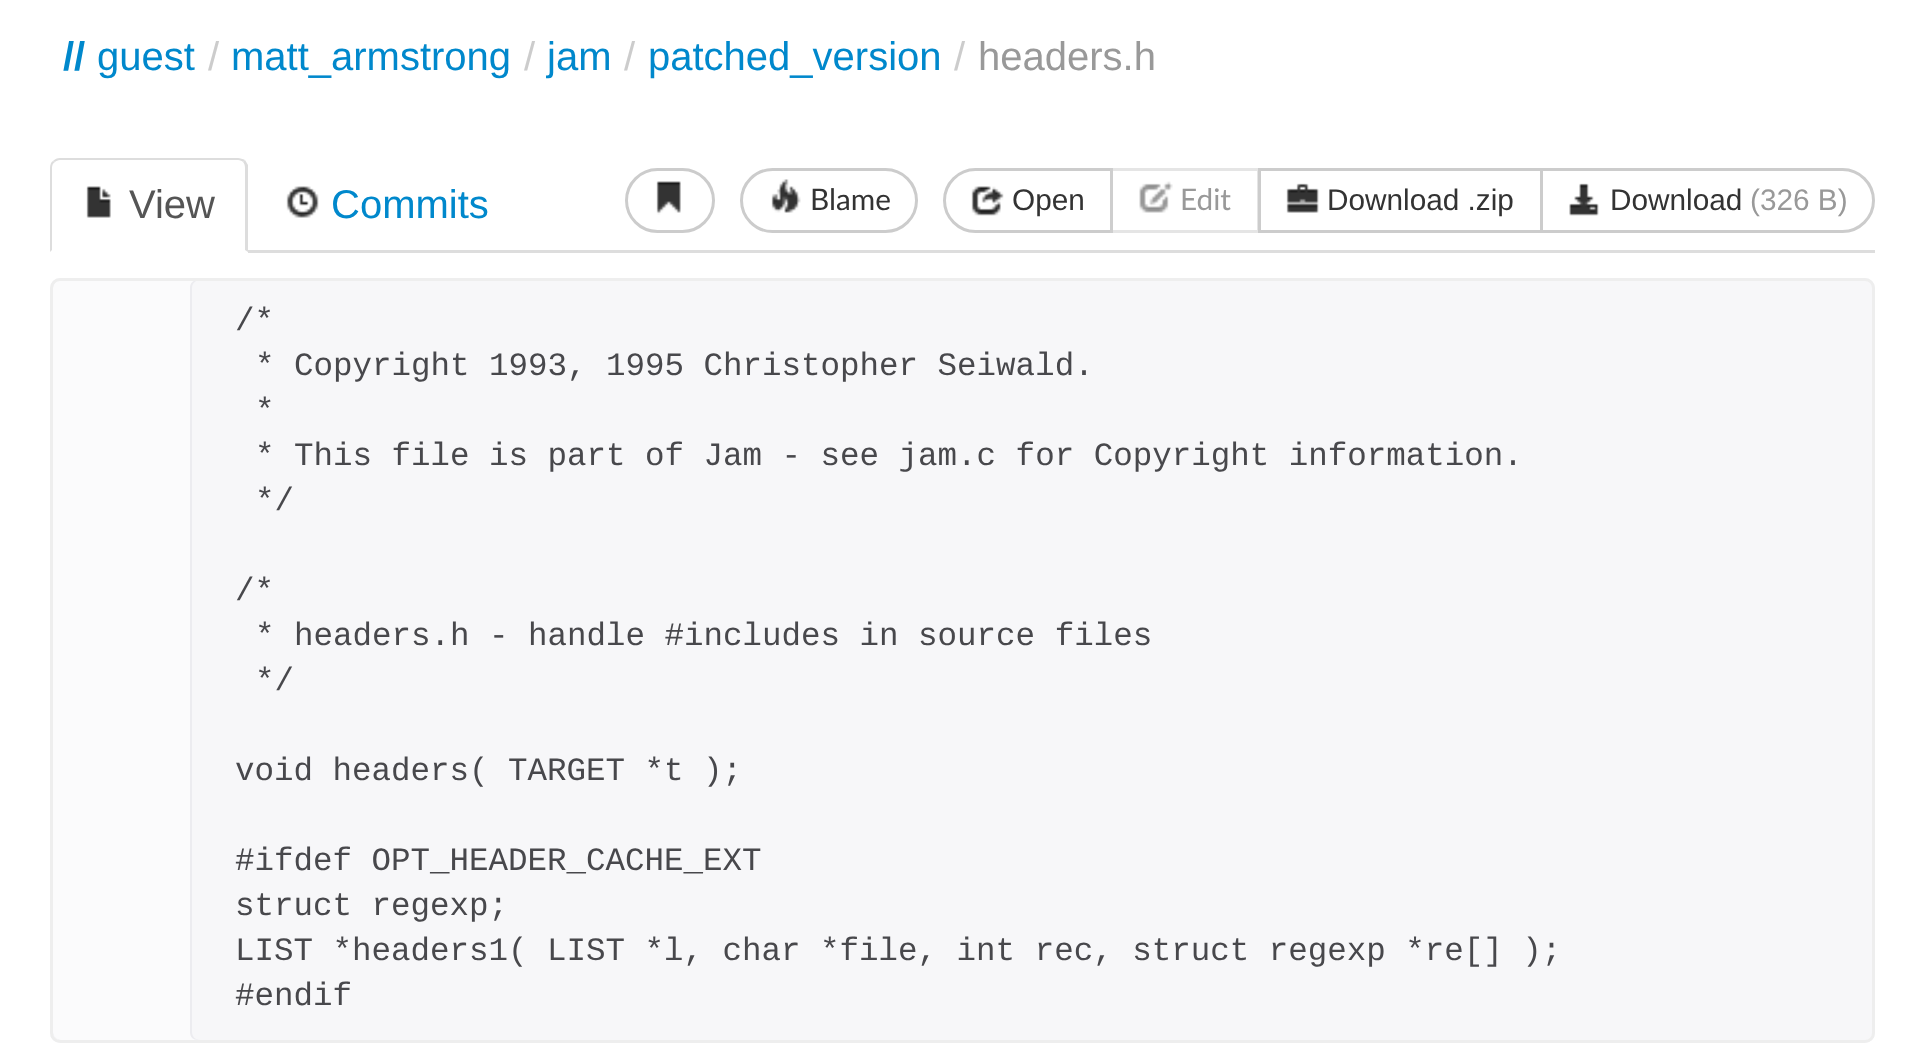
<?xml version="1.0" encoding="UTF-8"?>
<svg xmlns="http://www.w3.org/2000/svg" width="1925" height="1056">
    <rect width="100%" height="100%" fill="#FFFFFF"/>
    <text x="63" y="70" font-family="Arimo" font-size="40" font-weight="700" fill="#0088CC">//</text>
    <text x="97" y="70" font-family="Arimo" font-size="40" fill="#0088CC">guest</text>
    <text x="208" y="70" font-family="Arimo" font-size="40" fill="#CCCCCC">/</text>
    <text x="231" y="70" font-family="Arimo" font-size="40" fill="#0088CC">matt_armstrong</text>
    <text x="524" y="70" font-family="Arimo" font-size="40" fill="#CCCCCC">/</text>
    <text x="547" y="70" font-family="Arimo" font-size="40" fill="#0088CC">jam</text>
    <text x="624" y="70" font-family="Arimo" font-size="40" fill="#CCCCCC">/</text>
    <text x="648" y="70" font-family="Arimo" font-size="40" fill="#0088CC">patched_version</text>
    <text x="954" y="70" font-family="Arimo" font-size="40" fill="#CCCCCC">/</text>
    <text x="978" y="70" font-family="Arimo" font-size="40" fill="#999999">headers.h</text>
    <rect x="248" y="250" width="1627" height="3" fill="#DDDDDD"/>
    <path d="M 60 158 C 57 158 55 159 53 161 L 55 162 C 56 161 58 160 60 160 H 238 C 240 160 242 161 243 162 L 245 160 C 243 159 240 158 238 158 Z" fill="#DDDDDD"/>
    <path d="M 245 160 C 246 162 247 163 248 165 V 252 L 245 250 V 168 C 245 165 244 163 243 162 Z" fill="#DDDDDD"/>
    <path d="M 50 168 V 252 L 52 250 V 168 C 52 165 53 163 55 162 L 53 161 C 51 162 50 165 50 168 Z" fill="#DDDDDD"/>
    <image x="86" y="186" width="25" height="32" href="img_01.png"/>
    <text x="129" y="218" font-family="Arimo" font-size="40" fill="#555555">View</text>
    <image x="286" y="186" width="33" height="32" href="img_02.png"/>
    <text x="331" y="218" font-family="Arimo" font-size="40" fill="#0088CC">Commits</text>
    <rect x="626.5" y="169.5" width="87" height="62" rx="31" fill="none" stroke="#CCCCCC" stroke-width="3"/>
    <image x="656" y="181" width="25" height="34" href="img_03.png"/>
    <rect x="741.5" y="169.5" width="175" height="62" rx="31" fill="none" stroke="#CCCCCC" stroke-width="3"/>
    <image x="771" y="179" width="30" height="34" href="img_04.png"/>
    <text x="810" y="210" font-family="Lato" font-size="29.75" fill="#333333">Blame</text>
    <path d="M 975.5 169.5 H 1111.5 V 231.5 H 975.5 C 958.5 231.5 944.5 217.5 944.5 200.5 C 944.5 183.5 958.5 169.5 975.5 169.5 Z" fill="none" stroke="#CCCCCC" stroke-width="3"/>
    <image x="971" y="186" width="33" height="30" href="img_05.png"/>
    <text x="1012" y="210" font-family="Arimo" font-size="29.75" fill="#333333">Open</text>
    <rect x="1110" y="168" width="3" height="65" fill="#FFFFFF" fill-opacity="0.5"/>
    <rect x="1111.5" y="169.5" width="147" height="62" fill="none" stroke="#000000" stroke-opacity="0.1" stroke-width="3"/>
    <image x="1139" y="181" width="34" height="32" href="img_06.png"/>
    <text x="1180" y="210" font-family="Lato" font-size="29.75" fill="#999999">Edit</text>
    <rect x="1259.5" y="169.5" width="282" height="62" fill="none" stroke="#CCCCCC" stroke-width="3"/>
    <image x="1286" y="183" width="33" height="30" href="img_07.png"/>
    <text x="1327" y="210" font-family="Arimo" font-size="29.75" fill="#333333">Download .zip</text>
    <path d="M 1541.5 169.5 H 1842.5 C 1859.5 169.5 1873.5 183.5 1873.5 200.5 C 1873.5 217.5 1859.5 231.5 1842.5 231.5 H 1541.5 Z" fill="#FFFFFF" stroke="#CCCCCC" stroke-width="3"/>
    <image x="1569" y="183" width="30" height="33" href="img_08.png"/>
    <text x="1610" y="210" font-family="Arimo" font-size="29.75" fill="#333333">Download</text>
    <text x="1750" y="210" font-family="Arimo" font-size="29.75" fill="#999999">(326 B)</text>
    <rect x="50" y="278" width="1825" height="765" rx="10" fill="#F7F7F9"/>
    <path d="M 61 280 C 57 280 53 284 53 288 V 1032 C 53 1036 57 1040 61 1040 H 200 C 196 1040 192 1037 192 1032 V 288 C 192 283 196 280 200 280 Z" fill="#ECECF0"/>
    <path d="M 61 280 C 57 280 53 284 53 288 V 1032 C 53 1036 57 1040 61 1040 H 198 C 193 1040 190 1037 190 1032 V 288 C 190 283 193 280 198 280 Z" fill="#FBFBFC"/>
    <rect x="51.5" y="279.5" width="1822" height="762" rx="8.5" fill="none" stroke="#EEEEEE" stroke-width="3"/>
    <text x="235" y="330" font-family="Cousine" font-size="32.5" fill="#48484C">/*</text>
    <text font-family="Cousine" font-size="32.5" fill="#48484C">
        <tspan x="255" y="375">* Copyright 1993, 1995 Christopher Seiwald.</tspan>
        <tspan x="255" y="420">*</tspan>
        <tspan x="255" y="465">* This file is part of Jam - see jam.c for Copyright information.</tspan>
        <tspan x="255" y="510">*/</tspan>
    </text>
    <text x="235" y="600" font-family="Cousine" font-size="32.5" fill="#48484C">/*</text>
    <text font-family="Cousine" font-size="32.5" fill="#48484C">
        <tspan x="255" y="645">* headers.h - handle #includes in source files</tspan>
        <tspan x="255" y="690">*/</tspan>
    </text>
    <text x="235" y="780" font-family="Cousine" font-size="32.5" fill="#48484C">void headers( TARGET *t );</text>
    <text font-family="Cousine" font-size="32.5" fill="#48484C">
        <tspan x="235" y="870">#ifdef OPT_HEADER_CACHE_EXT</tspan>
        <tspan x="235" y="915">struct regexp;</tspan>
        <tspan x="235" y="960">LIST *headers1( LIST *l, char *file, int rec, struct regexp *re[] );</tspan>
        <tspan x="235" y="1005">#endif</tspan>
    </text>
</svg>
